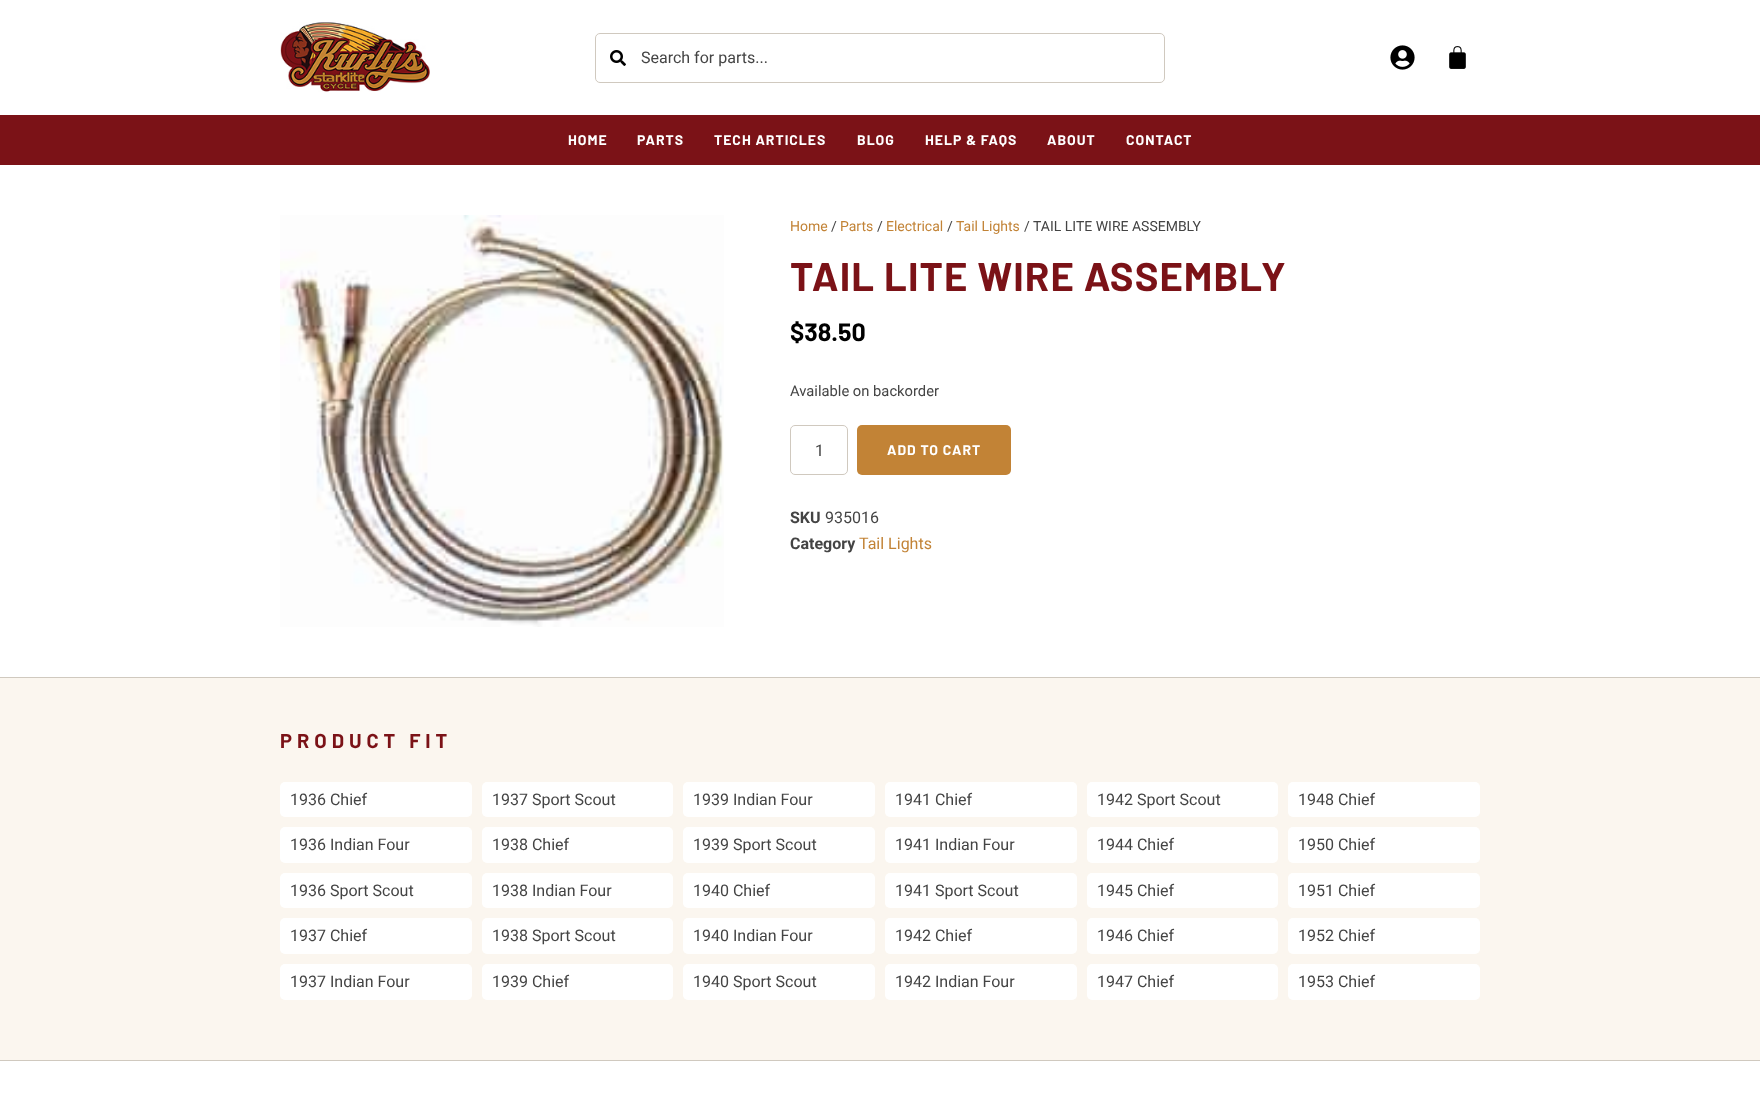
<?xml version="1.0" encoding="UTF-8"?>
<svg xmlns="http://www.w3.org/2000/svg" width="1760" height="1096">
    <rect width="100%" height="100%" fill="#FFFFFF"/>
    <image x="280" y="22" width="150" height="70" href="img_01.png"/>
    <rect x="595.5" y="33.5" width="569" height="49" rx="4.5" fill="none" stroke="#D0C9BF"/>
    <image x="610" y="50" width="16" height="16" href="img_02.png"/>
    <text x="641" y="63" font-family="Roboto" font-size="16" fill="#444444">Search for parts...</text>
    <image x="1390" y="45" width="25" height="25" href="img_03.png"/>
    <image x="1449" y="46" width="17" height="23" href="img_04.png"/>
    <rect x="0" y="115" width="1760" height="50" fill="#7B1217"/>
    <text x="568" y="145" font-family="Barlow" font-size="14" font-weight="700" letter-spacing="1" fill="#FFFFFF">HOME</text>
    <text x="637" y="145" font-family="Barlow" font-size="14" font-weight="700" letter-spacing="1" fill="#FFFFFF">PARTS</text>
    <text x="714" y="145" font-family="Barlow" font-size="14" font-weight="700" letter-spacing="1" fill="#FFFFFF">TECH ARTICLES</text>
    <text x="857" y="145" font-family="Barlow" font-size="14" font-weight="700" letter-spacing="1" fill="#FFFFFF">BLOG</text>
    <text x="925" y="145" font-family="Barlow" font-size="14" font-weight="700" letter-spacing="1" fill="#FFFFFF">HELP &amp; FAQS</text>
    <text x="1047" y="145" font-family="Barlow" font-size="14" font-weight="700" letter-spacing="1" fill="#FFFFFF">ABOUT</text>
    <text x="1126" y="145" font-family="Barlow" font-size="14" font-weight="700" letter-spacing="1" fill="#FFFFFF">CONTACT</text>
    <image x="280" y="215" width="444" height="412" href="img_05.png"/>
    <text x="790" y="231" font-family="Roboto" font-size="14" fill="#C28336">Home</text>
    <text x="831" y="231" font-family="Roboto" font-size="14" fill="#444444">/</text>
    <text x="840" y="231" font-family="Roboto" font-size="14" fill="#C28336">Parts</text>
    <text x="877" y="231" font-family="Roboto" font-size="14" fill="#444444">/</text>
    <text x="886" y="231" font-family="Roboto" font-size="14" fill="#C28336">Electrical</text>
    <text x="947" y="231" font-family="Roboto" font-size="14" fill="#444444">/</text>
    <text x="956" y="231" font-family="Roboto" font-size="14" fill="#C28336">Tail Lights</text>
    <text x="1024" y="231" font-family="Roboto" font-size="14" fill="#444444">/ TAIL LITE WIRE ASSEMBLY</text>
    <text x="790" y="291" font-family="Barlow" font-size="40" font-weight="700" letter-spacing="1" fill="#7B1217">TAIL LITE WIRE ASSEMBLY</text>
    <text x="790" y="341" font-family="Barlow" font-size="25" font-weight="700" fill="#000000">$38.50</text>
    <text x="790" y="396" font-family="Roboto" font-size="14.75" fill="#444444">Available on backorder</text>
    <rect x="790.5" y="425.5" width="57" height="49" rx="4.5" fill="none" stroke="#D0C9BF"/>
    <text x="815" y="456" font-family="Roboto" font-size="16" fill="#444444">1</text>
    <rect x="857" y="425" width="154" height="50" rx="5" fill="#C28336"/>
    <text x="887" y="455" font-family="Barlow" font-size="14" font-weight="700" letter-spacing="1" fill="#FFFFFF">ADD TO CART</text>
    <text x="790" y="523" font-family="Roboto" font-size="16" font-weight="700" fill="#444444">SKU</text>
    <text x="825" y="523" font-family="Roboto" font-size="16" fill="#444444">935016</text>
    <text x="790" y="549" font-family="Roboto" font-size="16" font-weight="700" fill="#444444">Category</text>
    <text x="859" y="549" font-family="Roboto" font-size="16" fill="#C28336">Tail Lights</text>
    <rect x="0" y="678" width="1760" height="382" fill="#FBF6EF"/>
    <rect x="0" y="677" width="1760" height="1" fill="#D0C9BF"/>
    <text x="280" y="748" font-family="Barlow" font-size="20" font-weight="700" letter-spacing="5" fill="#7B1217">PRODUCT FIT</text>
    <rect x="280" y="782" width="192" height="35" rx="5" fill="#FFFFFF"/>
    <text x="290" y="805" font-family="Roboto" font-size="16" fill="#444444">1936 Chief</text>
    <rect x="482" y="782" width="191" height="35" rx="5" fill="#FFFFFF"/>
    <text x="492" y="805" font-family="Roboto" font-size="16" fill="#444444">1937 Sport Scout</text>
    <rect x="683" y="782" width="192" height="35" rx="5" fill="#FFFFFF"/>
    <text x="693" y="805" font-family="Roboto" font-size="16" fill="#444444">1939 Indian Four</text>
    <rect x="885" y="782" width="192" height="35" rx="5" fill="#FFFFFF"/>
    <text x="895" y="805" font-family="Roboto" font-size="16" fill="#444444">1941 Chief</text>
    <rect x="1087" y="782" width="191" height="35" rx="5" fill="#FFFFFF"/>
    <text x="1097" y="805" font-family="Roboto" font-size="16" fill="#444444">1942 Sport Scout</text>
    <rect x="1288" y="782" width="192" height="35" rx="5" fill="#FFFFFF"/>
    <text x="1298" y="805" font-family="Roboto" font-size="16" fill="#444444">1948 Chief</text>
    <rect x="280" y="827" width="192" height="36" rx="5" fill="#FFFFFF"/>
    <text x="290" y="850" font-family="Roboto" font-size="16" fill="#444444">1936 Indian Four</text>
    <rect x="482" y="827" width="191" height="36" rx="5" fill="#FFFFFF"/>
    <text x="492" y="850" font-family="Roboto" font-size="16" fill="#444444">1938 Chief</text>
    <rect x="683" y="827" width="192" height="36" rx="5" fill="#FFFFFF"/>
    <text x="693" y="850" font-family="Roboto" font-size="16" fill="#444444">1939 Sport Scout</text>
    <rect x="885" y="827" width="192" height="36" rx="5" fill="#FFFFFF"/>
    <text x="895" y="850" font-family="Roboto" font-size="16" fill="#444444">1941 Indian Four</text>
    <rect x="1087" y="827" width="191" height="36" rx="5" fill="#FFFFFF"/>
    <text x="1097" y="850" font-family="Roboto" font-size="16" fill="#444444">1944 Chief</text>
    <rect x="1288" y="827" width="192" height="36" rx="5" fill="#FFFFFF"/>
    <text x="1298" y="850" font-family="Roboto" font-size="16" fill="#444444">1950 Chief</text>
    <rect x="280" y="873" width="192" height="35" rx="5" fill="#FFFFFF"/>
    <text x="290" y="896" font-family="Roboto" font-size="16" fill="#444444">1936 Sport Scout</text>
    <rect x="482" y="873" width="191" height="35" rx="5" fill="#FFFFFF"/>
    <text x="492" y="896" font-family="Roboto" font-size="16" fill="#444444">1938 Indian Four</text>
    <rect x="683" y="873" width="192" height="35" rx="5" fill="#FFFFFF"/>
    <text x="693" y="896" font-family="Roboto" font-size="16" fill="#444444">1940 Chief</text>
    <rect x="885" y="873" width="192" height="35" rx="5" fill="#FFFFFF"/>
    <text x="895" y="896" font-family="Roboto" font-size="16" fill="#444444">1941 Sport Scout</text>
    <rect x="1087" y="873" width="191" height="35" rx="5" fill="#FFFFFF"/>
    <text x="1097" y="896" font-family="Roboto" font-size="16" fill="#444444">1945 Chief</text>
    <rect x="1288" y="873" width="192" height="35" rx="5" fill="#FFFFFF"/>
    <text x="1298" y="896" font-family="Roboto" font-size="16" fill="#444444">1951 Chief</text>
    <rect x="280" y="918" width="192" height="36" rx="5" fill="#FFFFFF"/>
    <text x="290" y="941" font-family="Roboto" font-size="16" fill="#444444">1937 Chief</text>
    <rect x="482" y="918" width="191" height="36" rx="5" fill="#FFFFFF"/>
    <text x="492" y="941" font-family="Roboto" font-size="16" fill="#444444">1938 Sport Scout</text>
    <rect x="683" y="918" width="192" height="36" rx="5" fill="#FFFFFF"/>
    <text x="693" y="941" font-family="Roboto" font-size="16" fill="#444444">1940 Indian Four</text>
    <rect x="885" y="918" width="192" height="36" rx="5" fill="#FFFFFF"/>
    <text x="895" y="941" font-family="Roboto" font-size="16" fill="#444444">1942 Chief</text>
    <rect x="1087" y="918" width="191" height="36" rx="5" fill="#FFFFFF"/>
    <text x="1097" y="941" font-family="Roboto" font-size="16" fill="#444444">1946 Chief</text>
    <rect x="1288" y="918" width="192" height="36" rx="5" fill="#FFFFFF"/>
    <text x="1298" y="941" font-family="Roboto" font-size="16" fill="#444444">1952 Chief</text>
    <rect x="280" y="964" width="192" height="36" rx="5" fill="#FFFFFF"/>
    <text x="290" y="987" font-family="Roboto" font-size="16" fill="#444444">1937 Indian Four</text>
    <rect x="482" y="964" width="191" height="36" rx="5" fill="#FFFFFF"/>
    <text x="492" y="987" font-family="Roboto" font-size="16" fill="#444444">1939 Chief</text>
    <rect x="683" y="964" width="192" height="36" rx="5" fill="#FFFFFF"/>
    <text x="693" y="987" font-family="Roboto" font-size="16" fill="#444444">1940 Sport Scout</text>
    <rect x="885" y="964" width="192" height="36" rx="5" fill="#FFFFFF"/>
    <text x="895" y="987" font-family="Roboto" font-size="16" fill="#444444">1942 Indian Four</text>
    <rect x="1087" y="964" width="191" height="36" rx="5" fill="#FFFFFF"/>
    <text x="1097" y="987" font-family="Roboto" font-size="16" fill="#444444">1947 Chief</text>
    <rect x="1288" y="964" width="192" height="36" rx="5" fill="#FFFFFF"/>
    <text x="1298" y="987" font-family="Roboto" font-size="16" fill="#444444">1953 Chief</text>
    <rect x="0" y="1060" width="1760" height="1" fill="#D0C9BF"/>
</svg>
